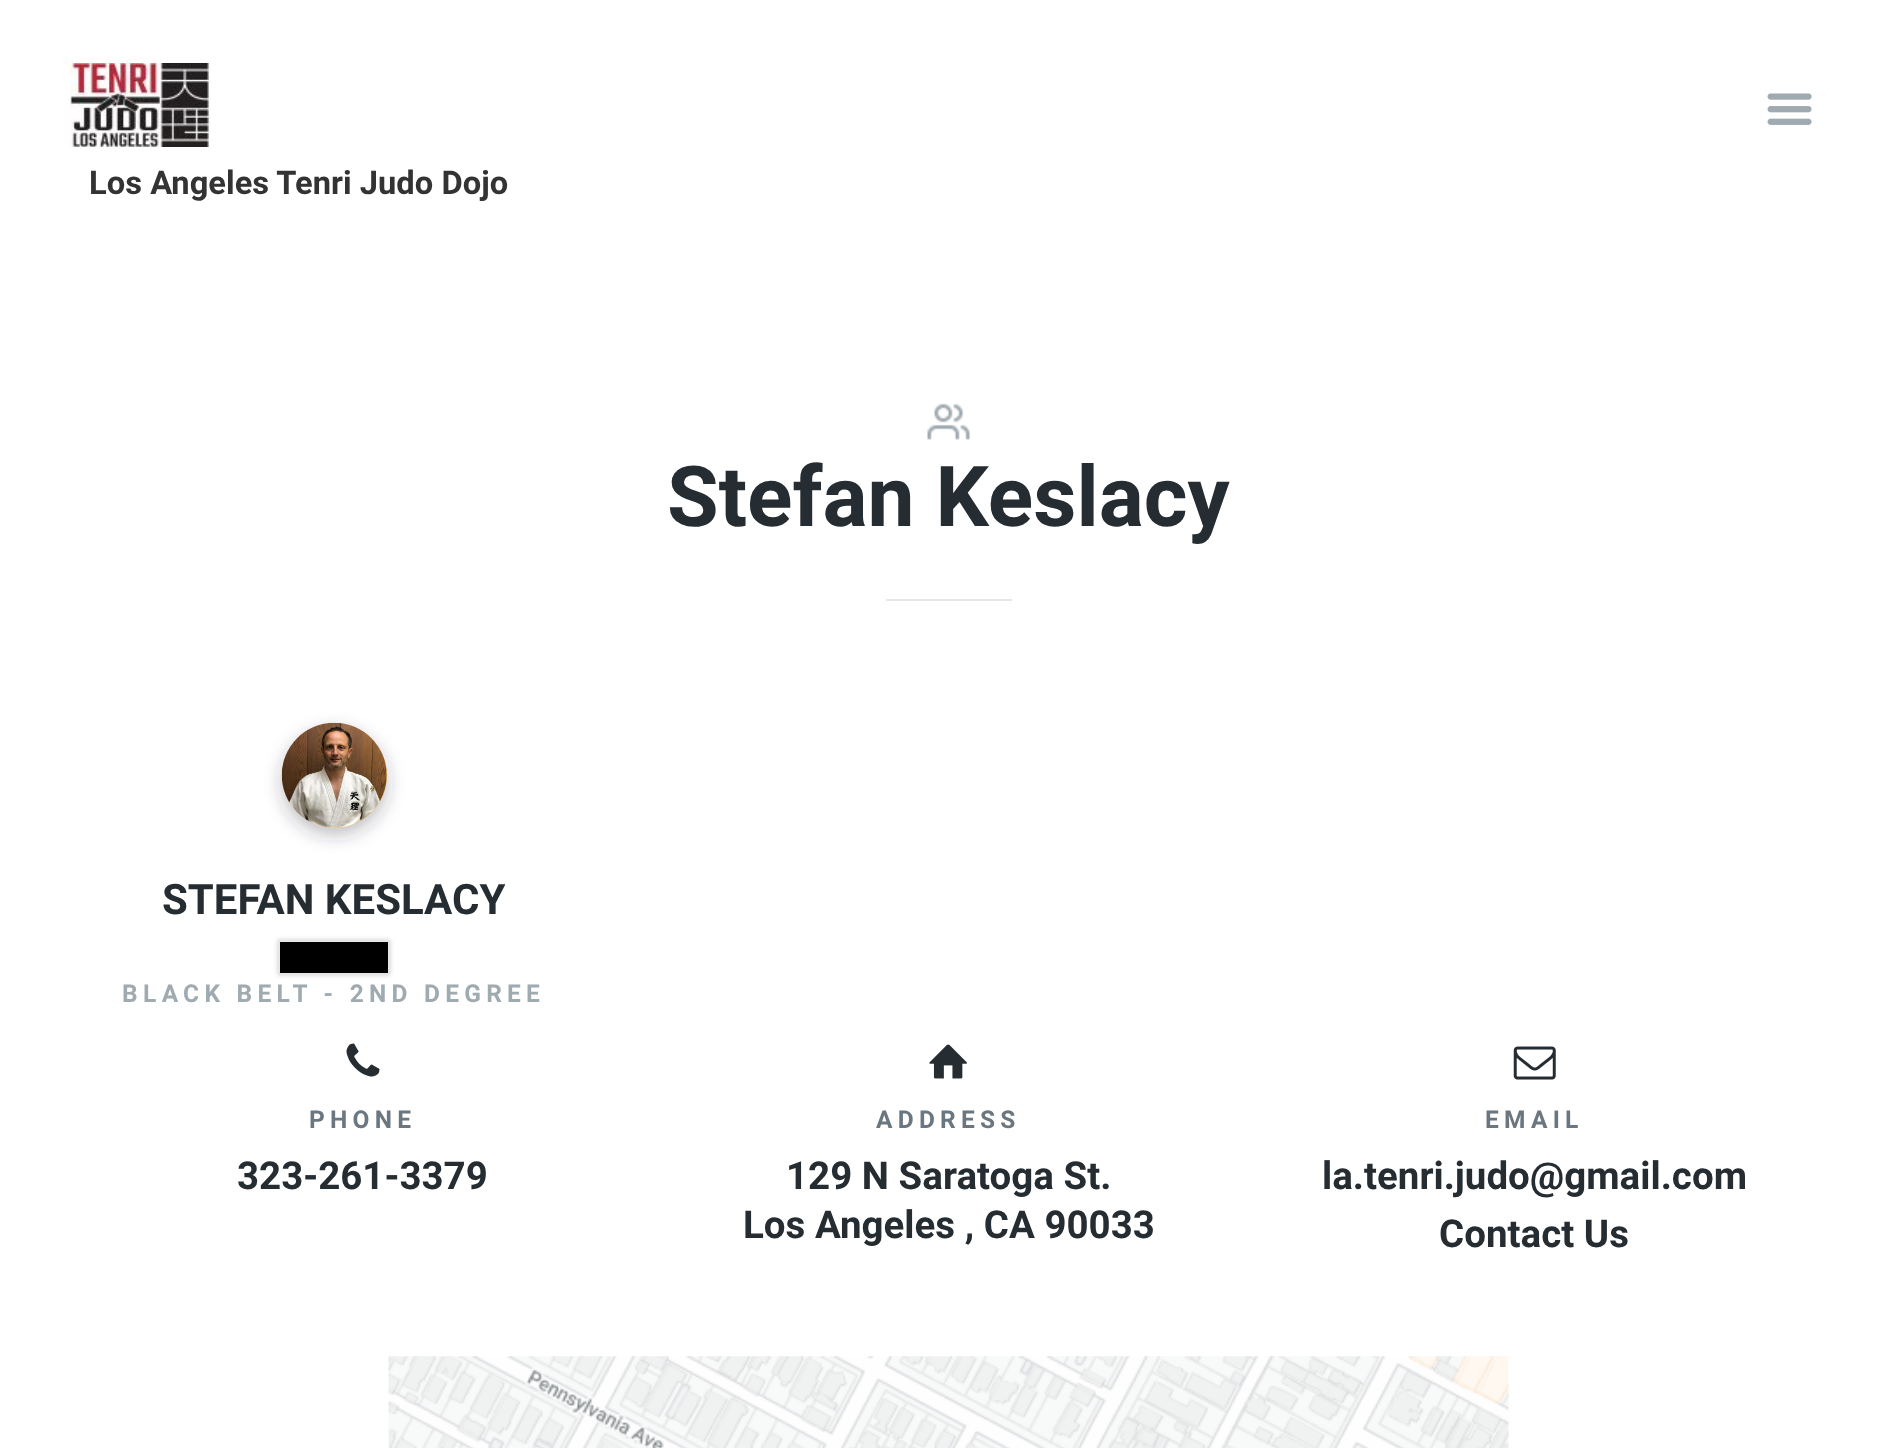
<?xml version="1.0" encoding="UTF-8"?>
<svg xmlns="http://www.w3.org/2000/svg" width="1896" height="1448">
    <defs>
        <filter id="blur1" x="-50%" y="-200%" width="200%" height="500%"><feGaussianBlur stdDeviation="9"/></filter>
        <filter id="blur2" x="-50%" y="-200%" width="200%" height="500%"><feGaussianBlur stdDeviation="2.5"/></filter>
    </defs>
    <rect width="100%" height="100%" fill="#FFFFFF"/>
    <image x="1767" y="93" width="45" height="32" href="img_01.png"/>
    <image x="70" y="63" width="140" height="84" href="img_02.png"/>
    <text x="89" y="194" font-family="Roboto" font-size="32.7" font-weight="700" fill="#333333">Los Angeles Tenri Judo Dojo</text>
    <image x="927" y="403" width="43" height="37" href="img_03.png"/>
    <text x="667" y="526" font-family="Roboto" font-size="84" font-weight="700" fill="#262D32">Stefan Keslacy</text>
    <rect x="886" y="599" width="126" height="2" fill="#E6E6E6"/>
    <rect x="282" y="730" width="105" height="105" rx="52.5" fill="#2D2F38" fill-opacity="0.3" filter="url(#blur1)"/>
    <circle cx="334.5" cy="775.5" r="52.5" fill="#FFC573"/>
    <image x="281" y="722" width="106" height="106" href="img_04.png"/>
    <text x="162" y="914" font-family="Roboto" font-size="42" font-weight="700" fill="#262D32">STEFAN KESLACY</text>
    <rect x="278" y="940" width="112" height="35" fill="#000000" fill-opacity="0.2" filter="url(#blur2)"/>
    <rect x="279" y="941" width="110" height="33" fill="#000000" stroke="#E6E6E6" stroke-width="2"/>
    <text x="122" y="1002" font-family="Roboto" font-size="24.5" font-weight="700" letter-spacing="5.25" fill="#A0AAB1">BLACK BELT - 2ND DEGREE</text>
    <image x="346" y="1043" width="34" height="34" href="img_05.png"/>
    <text x="309" y="1128" font-family="Roboto" font-size="24.5" font-weight="700" letter-spacing="5.25" fill="#6A7781">PHONE</text>
    <text x="237" y="1189" font-family="Roboto" font-size="38.5" font-weight="700" fill="#262D32">323-261-3379</text>
    <image x="929" y="1044" width="38" height="35" href="img_06.png"/>
    <text x="876" y="1128" font-family="Roboto" font-size="24.5" font-weight="700" letter-spacing="5.25" fill="#6A7781">ADDRESS</text>
    <text x="786" y="1189" font-family="Roboto" font-size="38.5" font-weight="700" fill="#262D32">129 N Saratoga St.</text>
    <text x="743" y="1238" font-family="Roboto" font-size="38.5" font-weight="700" fill="#262D32">Los Angeles , CA 90033</text>
    <image x="1513" y="1046" width="43" height="34" href="img_07.png"/>
    <text x="1485" y="1128" font-family="Roboto" font-size="24.5" font-weight="700" letter-spacing="5.25" fill="#6A7781">EMAIL</text>
    <text x="1322" y="1189" font-family="Roboto" font-size="38.5" font-weight="700" fill="#262D32">la.tenri.judo@gmail.com</text>
    <text x="1439" y="1247" font-family="Roboto" font-size="38.5" font-weight="700" fill="#262D32">Contact Us</text>
    <image x="388" y="1356" width="1121" height="92" href="img_08.png"/>
</svg>
